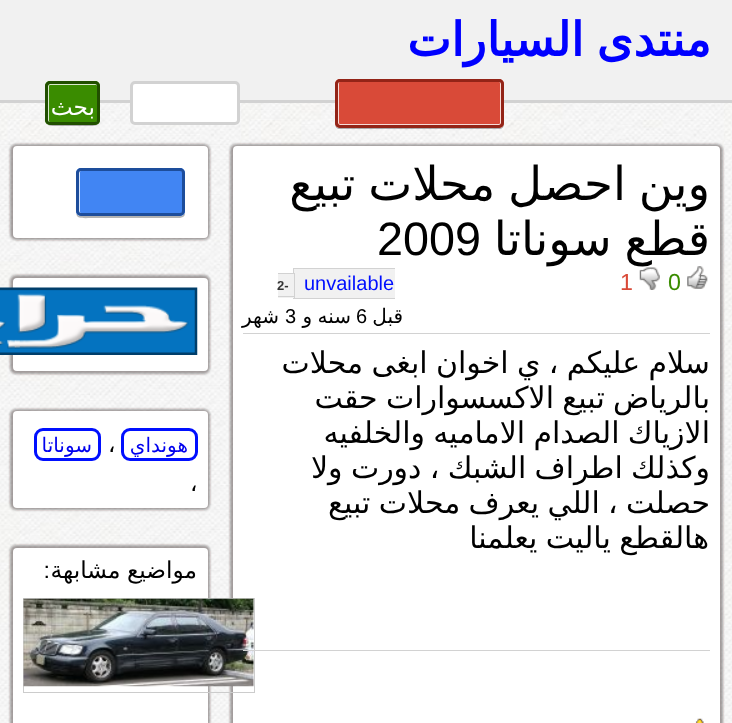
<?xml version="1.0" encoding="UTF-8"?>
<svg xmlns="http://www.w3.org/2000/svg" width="732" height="723">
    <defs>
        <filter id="blur1" x="-50%" y="-200%" width="200%" height="500%"><feGaussianBlur stdDeviation="1"/></filter>
    </defs>
    <rect width="100%" height="100%" fill="#FFFFFF"/>
    <image x="0" y="103" width="732" height="620" href="img_01.png"/>
    <rect x="0" y="0" width="732" height="100" fill="#F1F1F1"/>
    <rect x="0" y="100" width="732" height="3" fill="#D2D2D2"/>
    <text x="711" y="56" word-spacing="-2" font-family="DejaVu Sans" font-size="46.75" font-weight="700" direction="rtl" fill="#0000FF">منتدى السيارات</text>
    <path d="M 335 123 V 124 C 335 127 337 129 340 129 H 499 C 502 129 504 127 504 124 V 83 V 123 C 504 125 502 128 499 128 H 340 C 337 128 335 125 335 123 Z" fill="#000000" fill-opacity="0.3"/>
    <rect x="335" y="79" width="169" height="49" rx="5" fill="#D94A38"/>
    <rect x="338.5" y="81.5" width="162" height="43" rx="1.5" fill="none" stroke="#F7DBD7"/>
    <rect x="336.5" y="80.5" width="166" height="46" rx="3.5" fill="none" stroke="#932417" stroke-width="3"/>
    <rect x="131.5" y="82.5" width="107" height="41" rx="3.5" fill="#FFFFFF" stroke="#D2D2D2" stroke-width="3"/>
    <path d="M 45 120 C 45 127 53 126 58 126 H 88 C 92 126 100 127 100 120 C 100 123 98 125 95 125 H 50 C 47 125 45 123 45 120 Z" fill="#000000" fill-opacity="0.3"/>
    <rect x="45" y="81" width="55" height="44" rx="5" fill="#3A8C00"/>
    <rect x="48.5" y="84.5" width="49" height="38" rx="1.5" fill="none" stroke="#D8E8CC"/>
    <rect x="46.5" y="82.5" width="52" height="41" rx="3.5" fill="none" stroke="#214F00" stroke-width="3"/>
    <text x="95" y="115" font-family="DejaVu Sans" font-size="23.25" direction="rtl" fill="#FFFFFF">بحث</text>
    <rect x="230" y="144" width="493" height="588" rx="6" fill="#221919" fill-opacity="0.4" filter="url(#blur1)"/>
    <rect x="233" y="146" width="487" height="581" rx="4" fill="#FFFFFF"/>
    <text x="710" y="200" word-spacing="-2" font-family="DejaVu Sans" font-size="46.75" direction="rtl" fill="#000000">وين احصل محلات تبيع</text>
    <image x="687" y="266" width="21" height="23" href="img_02.png"/>
    <text x="710" y="255" word-spacing="-2" font-family="DejaVu Sans" font-size="46.75" direction="rtl" fill="#000000">قطع سوناتا</text>
    <text x="377" y="255" font-family="Liberation Sans" font-size="46.75" fill="#000000">2009</text>
    <text x="668" y="290" font-family="Liberation Sans" font-size="23.25" fill="#3A8C00">0</text>
    <image x="639" y="267" width="21" height="23" href="img_03.png"/>
    <text x="620" y="290" font-family="Liberation Sans" font-size="23.25" fill="#D94A38">1</text>
    <rect x="294" y="269" width="101" height="29" fill="#F1F1F1"/>
    <text x="304" y="290" font-family="Liberation Sans" font-size="20" fill="#000FFF">unvailable</text>
    <rect x="293" y="268" width="102" height="1" fill="#D2D2D2"/>
    <rect x="293" y="298" width="102" height="1" fill="#D2D2D2"/>
    <rect x="278" y="273" width="7" height="25" fill="#F1F1F1"/>
    <rect x="293" y="268" width="1" height="31" fill="#D2D2D2"/>
    <rect x="285" y="274" width="9" height="24" fill="#F1F1F1"/>
    <text x="277" y="290" font-family="Liberation Sans" font-size="13" font-weight="700" fill="#333333">2-</text>
    <rect x="278" y="273" width="17" height="1" fill="#D2D2D2"/>
    <rect x="278" y="296" width="7" height="1" fill="#D2D2D2"/>
    <rect x="294" y="273" width="1" height="25" fill="#D2D2D2"/>
    <rect x="285" y="296" width="10" height="1" fill="#D2D2D2"/>
    <text x="403" y="323" font-family="DejaVu Sans" font-size="20" direction="rtl" fill="#000000">قبل</text>
    <text x="356" y="323" font-family="Liberation Sans" font-size="20" fill="#000000">6</text>
    <text x="351" y="323" word-spacing="-1" font-family="DejaVu Sans" font-size="20" direction="rtl" fill="#000000">سنه و</text>
    <text x="285" y="323" font-family="Liberation Sans" font-size="20" fill="#000000">3</text>
    <text x="279" y="323" font-family="DejaVu Sans" font-size="20" direction="rtl" fill="#000000">شهر</text>
    <rect x="243" y="333" width="467" height="1" fill="#D2D2D2"/>
    <text font-family="DejaVu Sans" font-size="30" direction="rtl" fill="#000000">
        <tspan x="710" y="373" word-spacing="-1.25">سلام عليكم ، ي اخوان ابغى محلات</tspan>
        <tspan x="710" y="408" word-spacing="-1.25">بالرياض تبيع الاكسسوارات حقت</tspan>
        <tspan x="710" y="443" word-spacing="-1.25">الازياك الصدام الاماميه والخلفيه</tspan>
        <tspan x="710" y="478" word-spacing="-1.25">وكذلك اطراف الشبك ، دورت ولا</tspan>
        <tspan x="710" y="513" word-spacing="-1.25">حصلت ، اللي يعرف محلات تبيع</tspan>
    </text>
    <text x="709" y="548" word-spacing="-1.25" font-family="DejaVu Sans" font-size="30" direction="rtl" fill="#000000">هالقطع ياليت يعلمنا</text>
    <rect x="10" y="545" width="200" height="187" rx="6" fill="#221919" fill-opacity="0.4" filter="url(#blur1)"/>
    <rect x="13" y="548" width="195" height="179" rx="4" fill="#FFFFFF"/>
    <rect x="23.5" y="598.5" width="231" height="94" fill="none" stroke="#CCCCCC"/>
    <image x="23" y="598" width="231" height="89" href="img_06.png"/>
    <rect x="243" y="650" width="467" height="1" fill="#D2D2D2"/>
    <image x="695" y="718" width="9" height="5" href="img_04.png"/>
    <rect x="10" y="144" width="200" height="96" rx="6" fill="#221919" fill-opacity="0.4" filter="url(#blur1)"/>
    <rect x="13" y="146" width="195" height="92" rx="4" fill="#FFFFFF"/>
    <path d="M 76 172 V 200 C 76 221 74 218 98 218 H 180 L 183 217 C 185 216 185 214 185 212 C 185 214 183 216 180 216 H 81 C 78 216 76 214 76 212 Z" fill="#B3B3B3"/>
    <rect x="76" y="168" width="109" height="48" rx="5" fill="#4185F3"/>
    <rect x="79.5" y="170.5" width="103" height="43" rx="1.5" fill="none" stroke="#D9E7FD"/>
    <rect x="77.5" y="169.5" width="106" height="45" rx="3.5" fill="none" stroke="#1D4D9B" stroke-width="3"/>
    <rect x="10" y="275" width="200" height="99" rx="6" fill="#221919" fill-opacity="0.4" filter="url(#blur1)"/>
    <rect x="13" y="278" width="195" height="93" rx="4" fill="#FFFFFF"/>
    <image x="0" y="287" width="198" height="68" href="img_05.png"/>
    <rect x="10" y="409" width="200" height="101" rx="6" fill="#221919" fill-opacity="0.4" filter="url(#blur1)"/>
    <rect x="13" y="411" width="195" height="97" rx="4" fill="#FFFFFF"/>
    <rect x="122.5" y="429.5" width="74" height="30" rx="7.5" fill="none" stroke="#000FFF" stroke-width="3"/>
    <text x="188" y="452" font-family="DejaVu Sans" font-size="20" direction="rtl" fill="#0000EE">هونداي</text>
    <text x="108" y="452" font-family="DejaVu Sans" font-size="23.25" fill="#000000">،</text>
    <rect x="35.5" y="429.5" width="64" height="30" rx="7.5" fill="none" stroke="#000FFF" stroke-width="3"/>
    <text x="92" y="452" font-family="DejaVu Sans" font-size="20" direction="rtl" fill="#0000EE">سوناتا</text>
    <text x="190" y="491" font-family="DejaVu Sans" font-size="23.25" fill="#000000">،</text>
    <text x="197" y="578" word-spacing="-1" font-family="DejaVu Sans" font-size="23.25" direction="rtl" fill="#000000">مواضيع مشابهة</text>
    <text x="50" y="578" font-family="Liberation Sans" font-size="23.25" direction="rtl" fill="#000000">:</text>
</svg>
